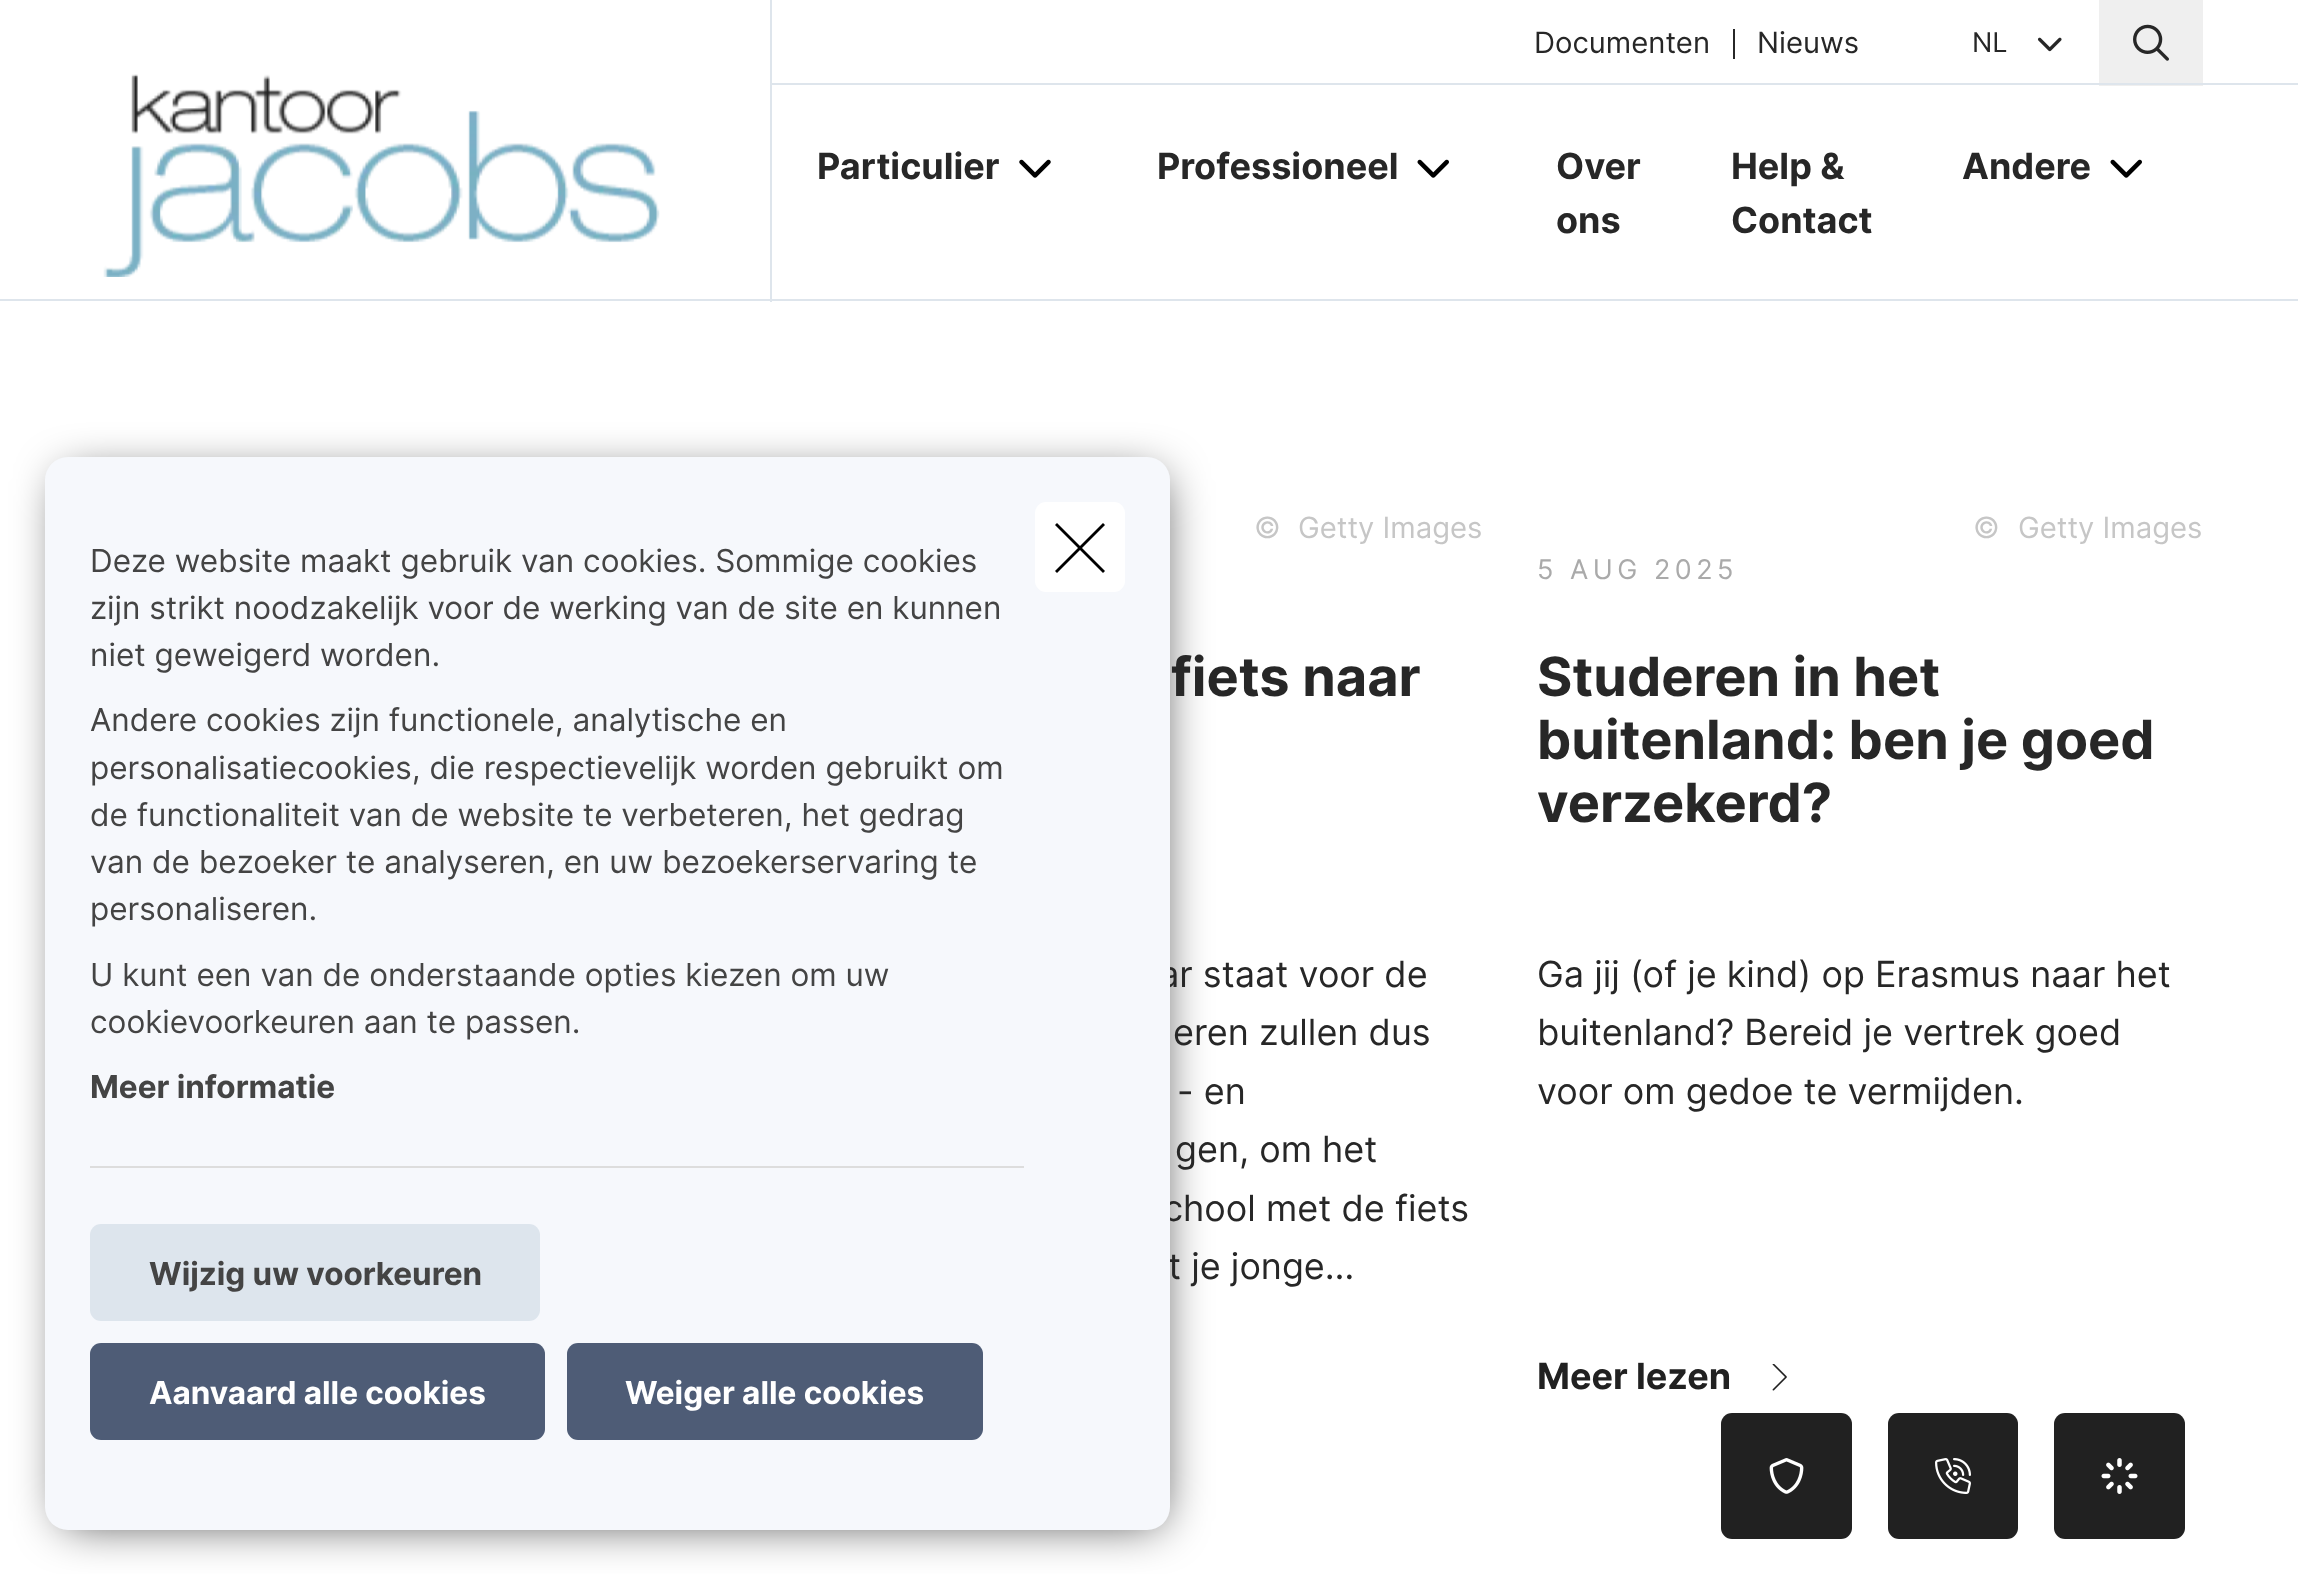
<?xml version="1.0" encoding="UTF-8"?>
<svg xmlns="http://www.w3.org/2000/svg" width="2298" height="1574">
    <defs>
        <filter id="blur1" x="-50%" y="-200%" width="200%" height="500%"><feGaussianBlur stdDeviation="23.5"/></filter>
    </defs>
    <rect width="100%" height="100%" fill="#FFFFFF"/>
    <rect x="0" y="299" width="2298" height="2" fill="#DEE5EC"/>
    <rect x="97" y="299" width="673" height="2" fill="#FFFFFF"/>
    <rect x="770" y="0" width="2" height="302" fill="#DEE5EC"/>
    <rect x="97" y="299" width="675" height="2" fill="#DEE5EC"/>
    <image x="103" y="74" width="557" height="203" href="img_01.png"/>
    <text x="1534" y="53" font-family="Inter" font-size="29.25" fill="#272727">Documenten</text>
    <rect x="1733" y="29" width="2" height="30" fill="#272727"/>
    <text x="1757" y="53" font-family="Inter" font-size="29.25" fill="#272727">Nieuws</text>
    <text x="1972" y="52" font-family="Inter" font-size="27" fill="#272727">NL</text>
    <image x="2037" y="37" width="25" height="15" href="img_02.png"/>
    <rect x="2099" y="0" width="104" height="86" fill="#EFEFEF"/>
    <image x="2133" y="24" width="36" height="37" href="img_03.png"/>
    <rect x="772" y="83" width="1526" height="2" fill="#DEE5EC"/>
    <text x="817" y="179" font-family="Inter" font-size="36" font-weight="700" fill="#272727">Particulier</text>
    <image x="1019" y="159" width="32" height="19" href="img_04.png"/>
    <text x="1157" y="179" font-family="Inter" font-size="36" font-weight="700" fill="#272727">Professioneel</text>
    <image x="1417" y="159" width="32" height="19" href="img_05.png"/>
    <text font-family="Inter" font-size="36" font-weight="700" fill="#272727">
        <tspan x="1556" y="179">Over</tspan>
        <tspan x="1556" y="233">ons</tspan>
    </text>
    <text font-family="Inter" font-size="36" font-weight="700" fill="#272727">
        <tspan x="1731" y="179">Help &amp;</tspan>
        <tspan x="1731" y="233">Contact</tspan>
    </text>
    <text x="1962" y="179" font-family="Inter" font-size="36" font-weight="700" fill="#272727">Andere</text>
    <image x="2110" y="159" width="32" height="19" href="img_05.png"/>
    <rect x="63" y="477" width="1098" height="1046" rx="9" fill="#000000" fill-opacity="0.75" filter="url(#blur1)"/>
    <text x="1159" y="987" font-family="Inter" font-size="36" fill="#272727">ar staat voor de</text>
    <text x="1163" y="1221" font-family="Inter" font-size="36" fill="#272727">chool met de fiets</text>
    <text x="1168" y="1279" font-family="Inter" font-size="36" fill="#272727">t je jonge…</text>
    <rect x="45" y="457" width="1125" height="1073" rx="23" fill="#F6F8FC"/>
    <rect x="90" y="1166" width="934" height="2" fill="#DDDDDD"/>
    <text font-family="Inter" font-size="31.5" fill="#444444">
        <tspan x="90" y="572">Deze website maakt gebruik van cookies. Sommige cookies</tspan>
        <tspan x="90" y="619">zijn strikt noodzakelijk voor de werking van de site en kunnen</tspan>
        <tspan x="90" y="666">niet geweigerd worden.</tspan>
    </text>
    <text font-family="Inter" font-size="31.5" fill="#444444">
        <tspan x="90" y="731">Andere cookies zijn functionele, analytische en</tspan>
        <tspan x="90" y="779">personalisatiecookies, die respectievelijk worden gebruikt om</tspan>
        <tspan x="90" y="826">de functionaliteit van de website te verbeteren, het gedrag</tspan>
        <tspan x="90" y="873">van de bezoeker te analyseren, en uw bezoekerservaring te</tspan>
        <tspan x="90" y="920">personaliseren.</tspan>
    </text>
    <text font-family="Inter" font-size="31.5" fill="#444444">
        <tspan x="90" y="986">U kunt een van de onderstaande opties kiezen om uw</tspan>
        <tspan x="90" y="1033">cookievoorkeuren aan te passen.</tspan>
    </text>
    <text x="90" y="1098" font-family="Inter" font-size="31.5" font-weight="700" fill="#444444">Meer informatie</text>
    <rect x="90" y="1224" width="450" height="97" rx="11" fill="#DDE5ED"/>
    <text x="149" y="1285" font-family="Inter" font-size="31.5" font-weight="700" fill="#444444">Wijzig uw voorkeuren</text>
    <rect x="90" y="1343" width="455" height="97" rx="11" fill="#4E5C76"/>
    <text x="149" y="1404" font-family="Inter" font-size="31.5" font-weight="700" fill="#FFFFFF">Aanvaard alle cookies</text>
    <rect x="567" y="1343" width="416" height="97" rx="11" fill="#4E5C76"/>
    <text x="625" y="1404" font-family="Inter" font-size="31.5" font-weight="700" fill="#FFFFFF">Weiger alle cookies</text>
    <rect x="1035" y="502" width="90" height="90" rx="11" fill="#FFFFFF"/>
    <path d="M 1057 523 L 1105 571 L 1103 573 L 1055 525 Z" fill="#000000"/>
    <path d="M 1055 571 L 1103 523 L 1105 525 L 1057 573 Z" fill="#000000"/>
    <text x="1254" y="538" font-family="Inter" font-size="29.25" fill="#C6C6C6">©</text>
    <text x="1298" y="538" font-family="Inter" font-size="29.25" fill="#C6C6C6">Getty Images</text>
    <text x="1171" y="696" font-family="Inter" font-size="54" font-weight="700" fill="#272727">fiets naar</text>
    <text x="1173" y="1045" font-family="Inter" font-size="36" fill="#272727">eren zullen dus</text>
    <text x="1177" y="1104" font-family="Inter" font-size="36" fill="#272727">- en</text>
    <text x="1175" y="1162" font-family="Inter" font-size="36" fill="#272727">gen, om het</text>
    <text x="1973" y="538" font-family="Inter" font-size="29.25" fill="#C6C6C6">©</text>
    <text x="2018" y="538" font-family="Inter" font-size="29.25" fill="#C6C6C6">Getty Images</text>
    <text x="1537" y="579" font-family="Inter" font-size="27" letter-spacing="4.5" fill="#AAAAAA">5 AUG 2025</text>
    <text font-family="Inter" font-size="54" font-weight="700" fill="#272727">
        <tspan x="1537" y="696">Studeren in het</tspan>
        <tspan x="1537" y="759">buitenland: ben je goed</tspan>
        <tspan x="1537" y="822">verzekerd?</tspan>
    </text>
    <text font-family="Inter" font-size="36" fill="#272727">
        <tspan x="1537" y="987">Ga jij (of je kind) op Erasmus naar het</tspan>
        <tspan x="1537" y="1045">buitenland? Bereid je vertrek goed</tspan>
        <tspan x="1537" y="1104">voor om gedoe te vermijden.</tspan>
    </text>
    <text x="1537" y="1389" font-family="Inter" font-size="36" font-weight="700" fill="#212121">Meer lezen</text>
    <image x="1772" y="1364" width="15" height="27" href="img_06.png"/>
    <rect x="1721" y="1413" width="131" height="126" rx="11" fill="#212121"/>
    <image x="1769" y="1458" width="35" height="36" href="img_07.png"/>
    <rect x="1888" y="1413" width="130" height="126" rx="11" fill="#212121"/>
    <image x="1935" y="1458" width="36" height="36" href="img_08.png"/>
    <rect x="2054" y="1413" width="131" height="126" rx="11" fill="#212121"/>
    <image x="2101" y="1458" width="37" height="36" href="img_09.png"/>
</svg>
